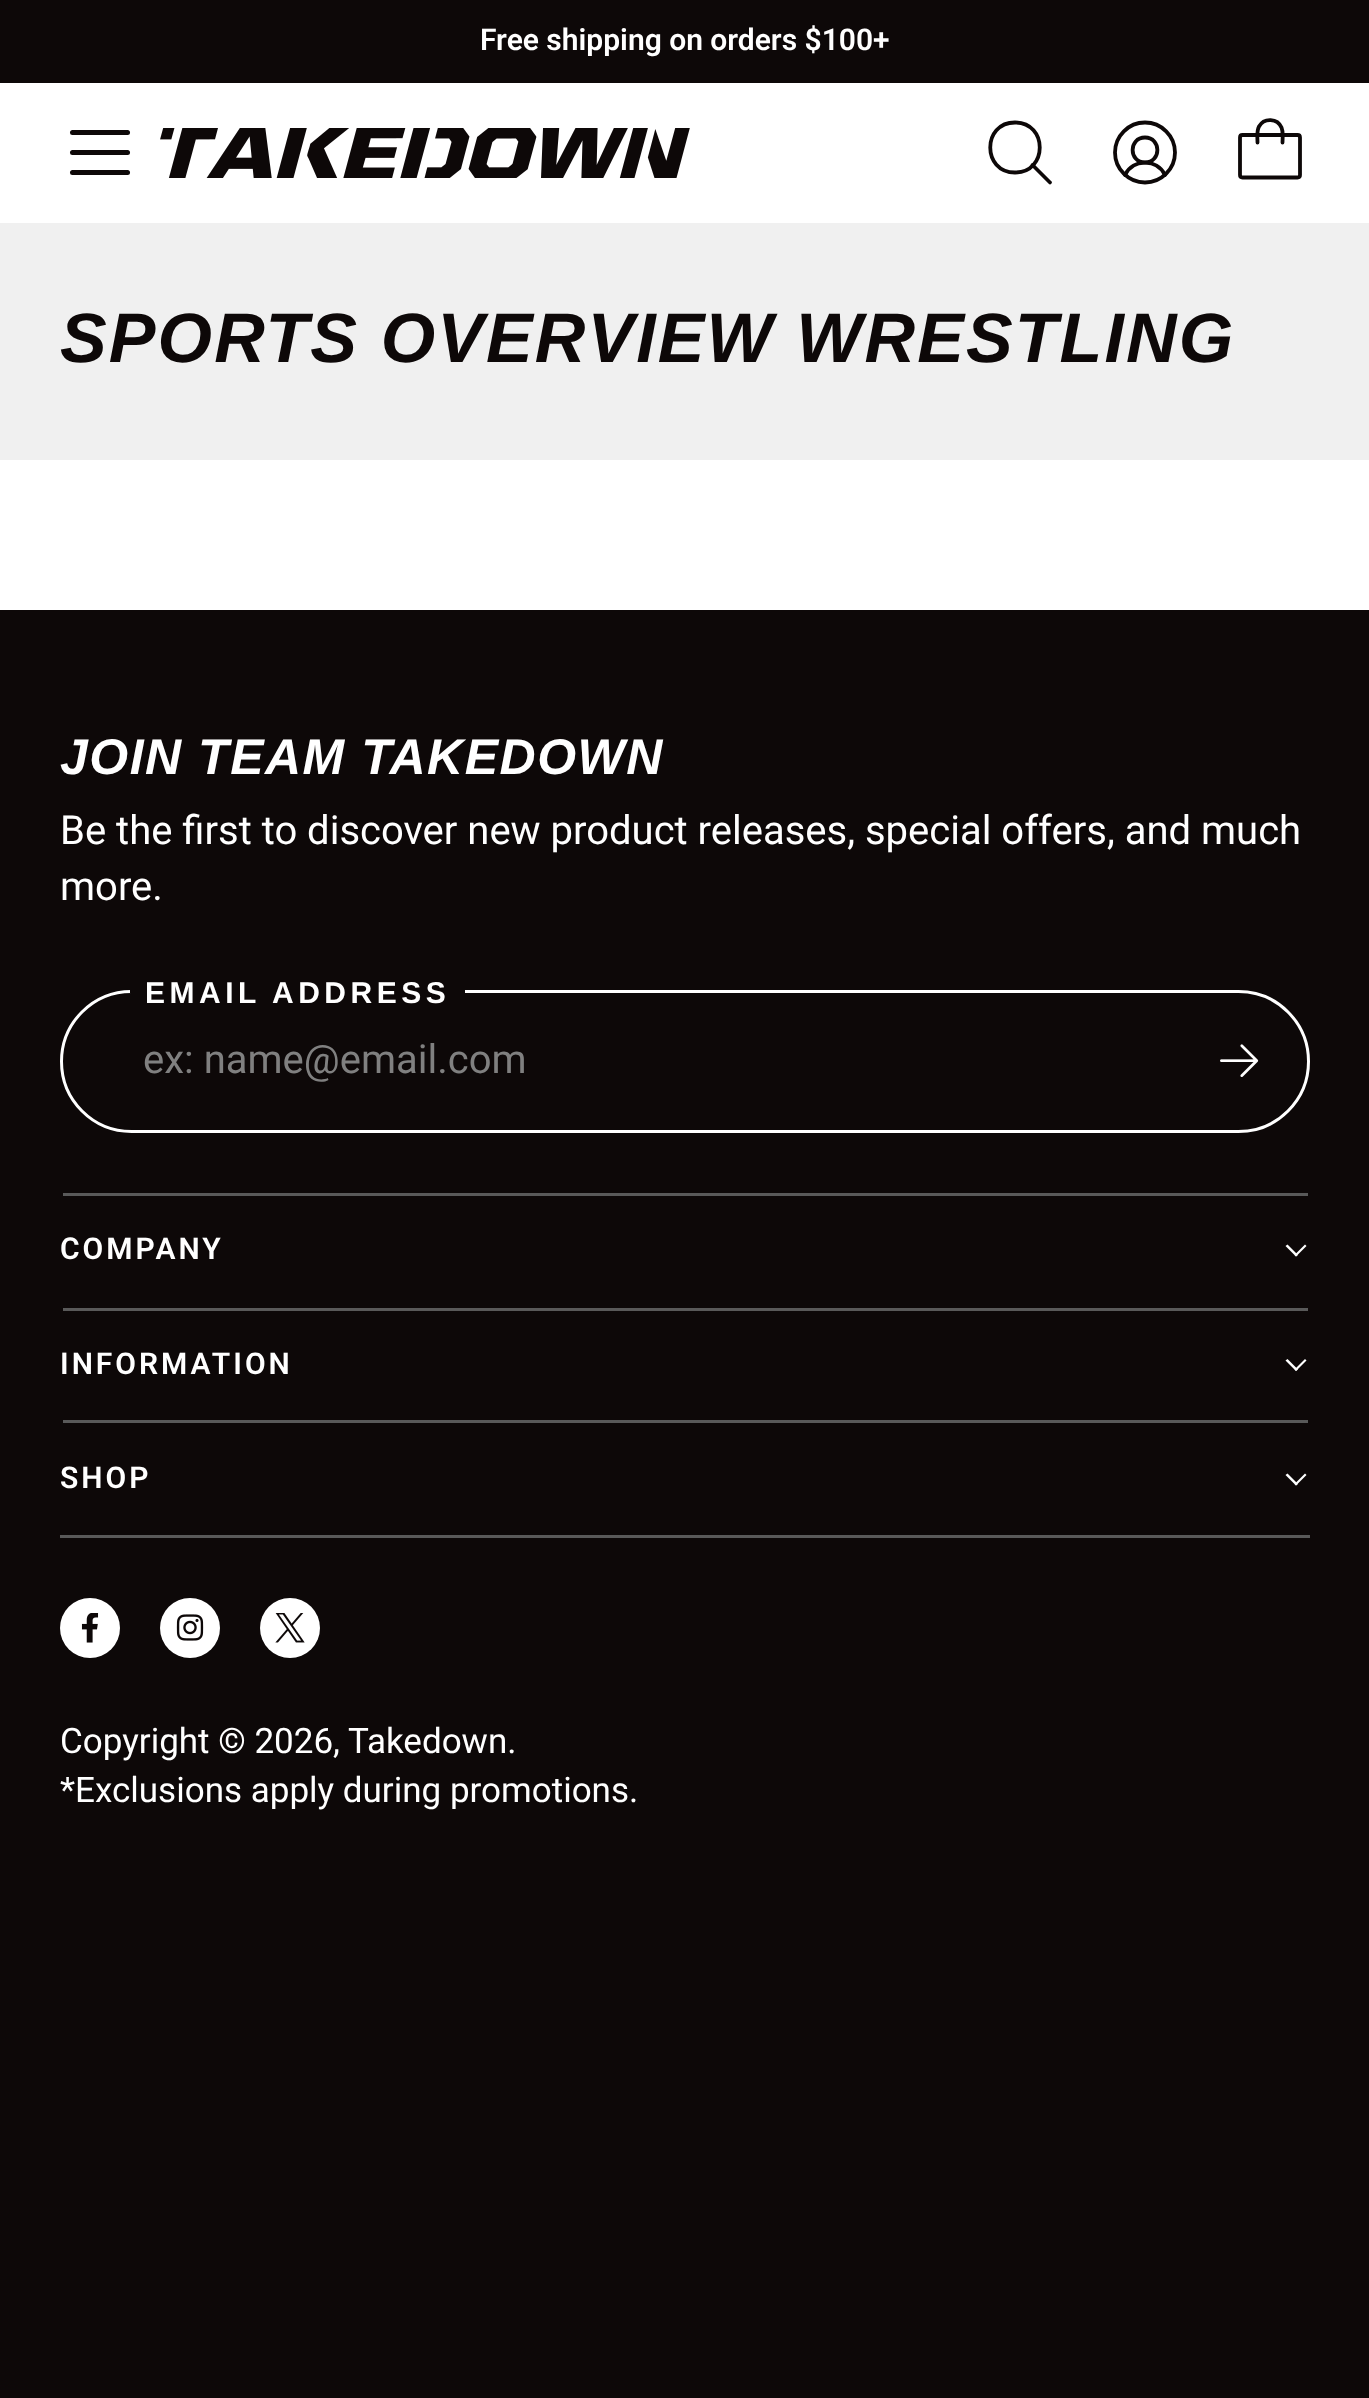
<?xml version="1.0" encoding="UTF-8"?>
<svg xmlns="http://www.w3.org/2000/svg" width="1369" height="2398">
    <rect width="100%" height="100%" fill="#0D0808"/>
    <rect x="0" y="83" width="1369" height="527" fill="#FFFFFF"/>
    <text x="480" y="50" font-family="Roboto" font-size="30" font-weight="600" fill="#FFFFFF">Free shipping on orders $100+</text>
    <rect x="70" y="130" width="60" height="5" rx="2.5" fill="#0D0808"/>
    <rect x="70" y="150" width="60" height="5" rx="2.5" fill="#0D0808"/>
    <rect x="70" y="170" width="60" height="5" rx="2.5" fill="#0D0808"/>
    <image x="160" y="128" width="530" height="50" href="img_01.png"/>
    <path d="M 1015 172.5 C 1048 172.5 1048 122.5 1015 122.5 C 982 122.5 982 172.5 1015 172.5 Z" fill="none" stroke="#0D0808" stroke-width="3.8" stroke-linecap="round" stroke-linejoin="round"/>
    <path d="M 1032.5 165 L 1050 182.5" fill="none" stroke="#0D0808" stroke-width="3.8" stroke-linecap="round" stroke-linejoin="round"/>
    <path d="M 1125 175 C 1133 158.5 1157 158.5 1165 175" fill="none" stroke="#0D0808" stroke-width="3.8" stroke-linecap="round" stroke-linejoin="round"/>
    <path d="M 1145 182.5 C 1161.5 182.5 1175 169 1175 152.5 C 1175 136 1161.5 122.5 1145 122.5 C 1128.5 122.5 1115 136 1115 152.5 C 1115 169 1128.5 182.5 1145 182.5 Z" fill="none" stroke="#0D0808" stroke-width="3.8" stroke-linecap="round" stroke-linejoin="round"/>
    <path d="M 1145 162.5 C 1161.5 162.5 1161.5 137.5 1145 137.5 C 1128.5 137.5 1128.5 162.5 1145 162.5 Z" fill="none" stroke="#0D0808" stroke-width="3.8" stroke-linecap="round" stroke-linejoin="round"/>
    <path d="M 1297.5 135 H 1242.5 C 1241 135 1240 136 1240 137.5 V 175 C 1240 176.5 1241 177.5 1242.5 177.5 H 1297.5 C 1299 177.5 1300 176.5 1300 175 V 137.5 C 1300 136 1299 135 1297.5 135 Z" fill="none" stroke="#0D0808" stroke-width="3.8" stroke-linecap="round" stroke-linejoin="round"/>
    <path d="M 1257.5 142.5 C 1257.5 137.5 1256.5 131 1259 126.5 C 1264 117.5 1277.5 118 1281.5 127.5 C 1283.5 132 1282.5 138 1282.5 142.5" fill="none" stroke="#0D0808" stroke-width="3.8" stroke-linecap="round" stroke-linejoin="round"/>
    <rect x="0" y="223" width="1369" height="237" fill="#F0F0F0"/>
    <text x="60" y="362" font-family="Liberation Sans" font-size="70" font-weight="700" font-style="italic" letter-spacing="2.1" fill="#0D0808">SPORTS OVERVIEW WRESTLING</text>
    <text x="60" y="774" font-family="Liberation Sans" font-size="50" font-weight="700" font-style="italic" letter-spacing="1.5" fill="#FFFFFF">JOIN TEAM TAKEDOWN</text>
    <text font-family="Roboto" font-size="40" fill="#FFFFFF">
        <tspan x="60" y="844">Be the first to discover new product releases, special offers, and much</tspan>
        <tspan x="60" y="900">more.</tspan>
    </text>
    <rect x="61.5" y="991.5" width="1247" height="140" rx="70" fill="none" stroke="#FFFFFF" stroke-width="3"/>
    <rect x="130" y="990" width="335" height="3" fill="#0D0808"/>
    <text x="145" y="1003" font-family="Liberation Sans" font-size="30" font-weight="700" letter-spacing="4.5" fill="#FFFFFF">EMAIL ADDRESS</text>
    <text x="143" y="1073" font-family="Roboto" font-size="40" fill="#808080">ex: name@email.com</text>
    <image x="1220" y="1044" width="39" height="33" href="img_02.png"/>
    <rect x="63" y="1193" width="1245" height="3" fill="#595959"/>
    <text x="60" y="1259" font-family="Roboto" font-size="30" font-weight="600" letter-spacing="3" fill="#FFFFFF">COMPANY</text>
    <path d="M 1305 1244.5 L 1306.5 1246 L 1296 1256.5 L 1294.5 1255 Z" fill="#FFFFFF"/>
    <path d="M 1287.5 1244.5 L 1298 1255 L 1296 1256.5 L 1285.5 1246 Z" fill="#FFFFFF"/>
    <rect x="63" y="1308" width="1245" height="3" fill="#595959"/>
    <text x="60" y="1374" font-family="Roboto" font-size="30" font-weight="600" letter-spacing="3" fill="#FFFFFF">INFORMATION</text>
    <path d="M 1305 1359 L 1306.5 1360.5 L 1296 1371 L 1294.5 1369.5 Z" fill="#FFFFFF"/>
    <path d="M 1287.5 1359 L 1298 1369.5 L 1296 1371 L 1285.5 1360.5 Z" fill="#FFFFFF"/>
    <rect x="60" y="1535" width="1250" height="3" fill="#595959"/>
    <rect x="63" y="1420" width="1245" height="3" fill="#595959"/>
    <text x="60" y="1488" font-family="Roboto" font-size="30" font-weight="600" letter-spacing="3" fill="#FFFFFF">SHOP</text>
    <path d="M 1305 1473.5 L 1306.5 1475 L 1296 1485.5 L 1294.5 1484 Z" fill="#FFFFFF"/>
    <path d="M 1287.5 1473.5 L 1298 1484 L 1296 1485.5 L 1285.5 1475 Z" fill="#FFFFFF"/>
    <circle cx="90" cy="1628" r="30" fill="#FFFFFF"/>
    <image x="81" y="1613" width="18" height="30" href="img_03.png"/>
    <circle cx="190" cy="1628" r="30" fill="#FFFFFF"/>
    <image x="176" y="1614" width="28" height="27" href="img_04.png"/>
    <circle cx="290" cy="1628" r="30" fill="#FFFFFF"/>
    <image x="275" y="1613" width="30" height="30" href="img_05.png"/>
    <text font-family="Roboto" font-size="35" fill="#FFFFFF">
        <tspan x="60" y="1753">Copyright © 2026, Takedown.</tspan>
        <tspan x="60" y="1802">*Exclusions apply during promotions.</tspan>
    </text>
</svg>
